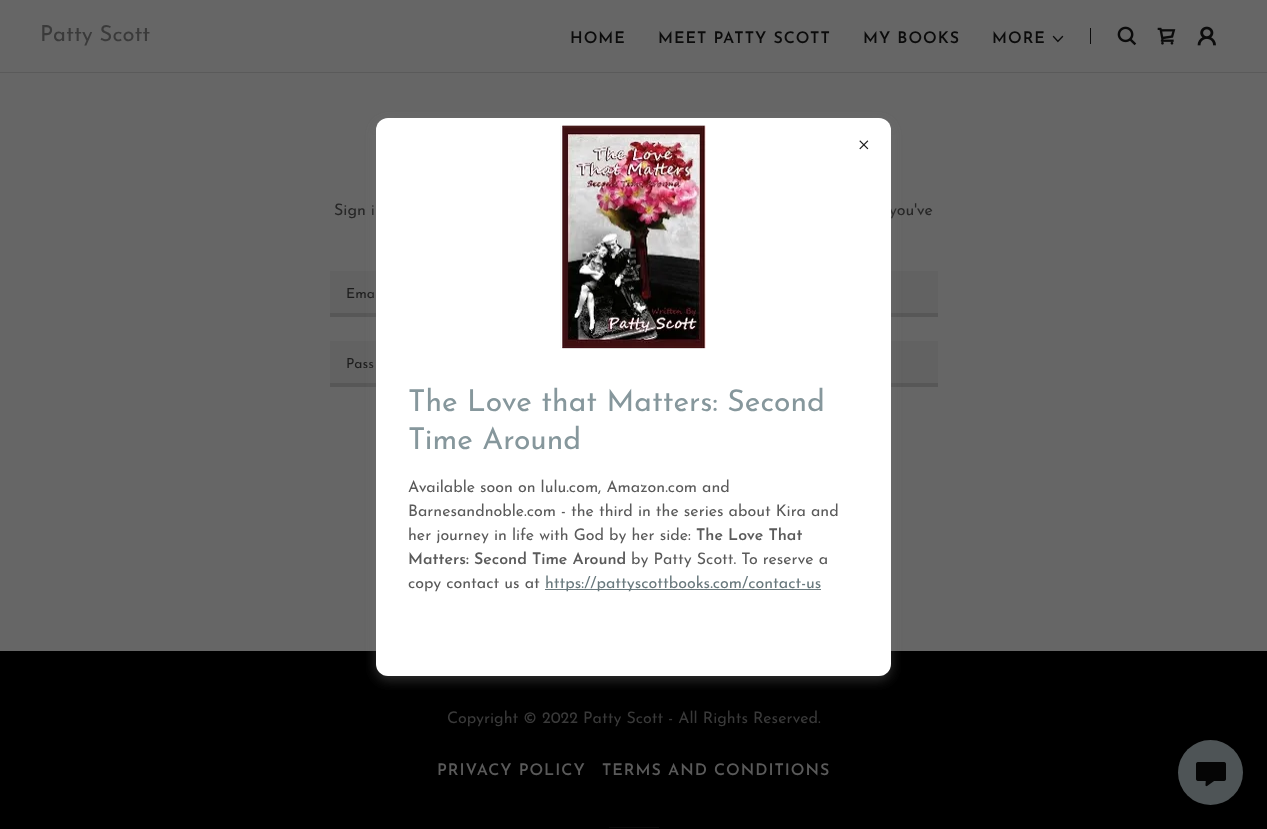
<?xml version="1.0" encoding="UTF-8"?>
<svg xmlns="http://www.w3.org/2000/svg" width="1267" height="829">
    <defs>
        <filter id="blur1" x="-50%" y="-200%" width="200%" height="500%"><feGaussianBlur stdDeviation="6"/></filter>
    </defs>
    <rect width="100%" height="100%" fill="#000000"/>
    <rect x="0" y="0" width="1267" height="72" fill="#666666"/>
    <text x="40" y="41" font-family="Josefin Sans" font-size="22" fill="#3A3A3A">Patty Scott</text>
    <text x="570" y="43" font-family="Josefin Sans" font-size="16" font-weight="600" letter-spacing="1" fill="#0B0B0B">HOME</text>
    <text x="658" y="43" font-family="Josefin Sans" font-size="16" font-weight="600" letter-spacing="1" fill="#0B0B0B">MEET PATTY SCOTT</text>
    <text x="863" y="43" font-family="Josefin Sans" font-size="16" font-weight="600" letter-spacing="1" fill="#0B0B0B">MY BOOKS</text>
    <text x="992" y="43" font-family="Josefin Sans" font-size="16" font-weight="600" letter-spacing="1" fill="#0B0B0B">MORE</text>
    <image x="1052" y="35" width="12" height="8" href="img_01.png"/>
    <rect x="1090" y="28" width="1" height="16" fill="#0B0B0B"/>
    <image x="1117" y="26" width="20" height="20" href="img_02.png"/>
    <image x="1157" y="27" width="19" height="18" href="img_03.png"/>
    <image x="1197" y="26" width="19" height="20" href="img_04.png"/>
    <rect x="0" y="72" width="1267" height="1" fill="#5A5A5A"/>
    <rect x="0" y="73" width="1267" height="578" fill="#666666"/>
    <text x="334" y="215" font-family="Josefin Sans" font-size="16" fill="#262626">Sign i</text>
    <text x="889" y="215" font-family="Josefin Sans" font-size="16" fill="#262626">you've</text>
    <rect x="330" y="271" width="608" height="42" fill="#626262"/>
    <rect x="330" y="313" width="608" height="4" fill="#575757"/>
    <text x="346" y="298" font-family="Josefin Sans" font-size="14" fill="#1C1C1C">Ema</text>
    <rect x="330" y="341" width="608" height="42" fill="#626262"/>
    <rect x="330" y="383" width="608" height="4" fill="#575757"/>
    <text x="346" y="368" font-family="Josefin Sans" font-size="14" fill="#1C1C1C">Pass</text>
    <rect x="376" y="122" width="515" height="558" rx="12" fill="#757575" fill-opacity="0.4" filter="url(#blur1)"/>
    <rect x="376" y="118" width="515" height="558" rx="12" fill="#FFFFFF"/>
    <image x="859" y="140" width="10" height="10" href="img_05.png"/>
    <image x="560" y="125" width="146" height="224" href="img_06.png"/>
    <text font-family="Josefin Sans" font-size="30" fill="#86979C">
        <tspan x="408" y="411">The Love that Matters: Second</tspan>
        <tspan x="408" y="449">Time Around</tspan>
    </text>
    <text font-family="Josefin Sans" font-size="16" fill="#5A5A5A">
        <tspan x="408" y="492">Available soon on lulu.com, Amazon.com and</tspan>
        <tspan x="408" y="516">Barnesandnoble.com - the third in the series about Kira and</tspan>
        <tspan x="408" y="540">her journey in life with God by her side:</tspan>
    </text>
    <text x="696" y="540" font-family="Josefin Sans" font-size="16" font-weight="600" fill="#5A5A5A">The Love That</text>
    <text x="408" y="564" font-family="Josefin Sans" font-size="16" font-weight="600" fill="#5A5A5A">Matters: Second Time Around</text>
    <text x="631" y="564" font-family="Josefin Sans" font-size="16" fill="#5A5A5A">by Patty Scott. To reserve a</text>
    <text x="408" y="588" font-family="Josefin Sans" font-size="16" fill="#5A5A5A">copy contact us at</text>
    <rect x="545" y="589" width="276" height="1" fill="#69797D"/>
    <text x="545" y="588" font-family="Josefin Sans" font-size="16" fill="#69797D">https://pattyscottbooks.com/contact-us</text>
    <text x="447" y="723" font-family="Josefin Sans" font-size="16" fill="#3A3A3A">Copyright © 2022 Patty Scott - All Rights Reserved.</text>
    <text x="437" y="775" font-family="Josefin Sans" font-size="16" font-weight="600" letter-spacing="1" fill="#5A5A5A">PRIVACY POLICY</text>
    <text x="602" y="775" font-family="Josefin Sans" font-size="16" font-weight="600" letter-spacing="1" fill="#5A5A5A">TERMS AND CONDITIONS</text>
    <rect x="609" y="827" width="50" height="1" fill="#0B0B0B"/>
    <circle cx="1210.5" cy="772.5" r="32.5" fill="#4E5456"/>
    <image x="1196" y="762" width="30" height="25" href="img_07.png"/>
</svg>
